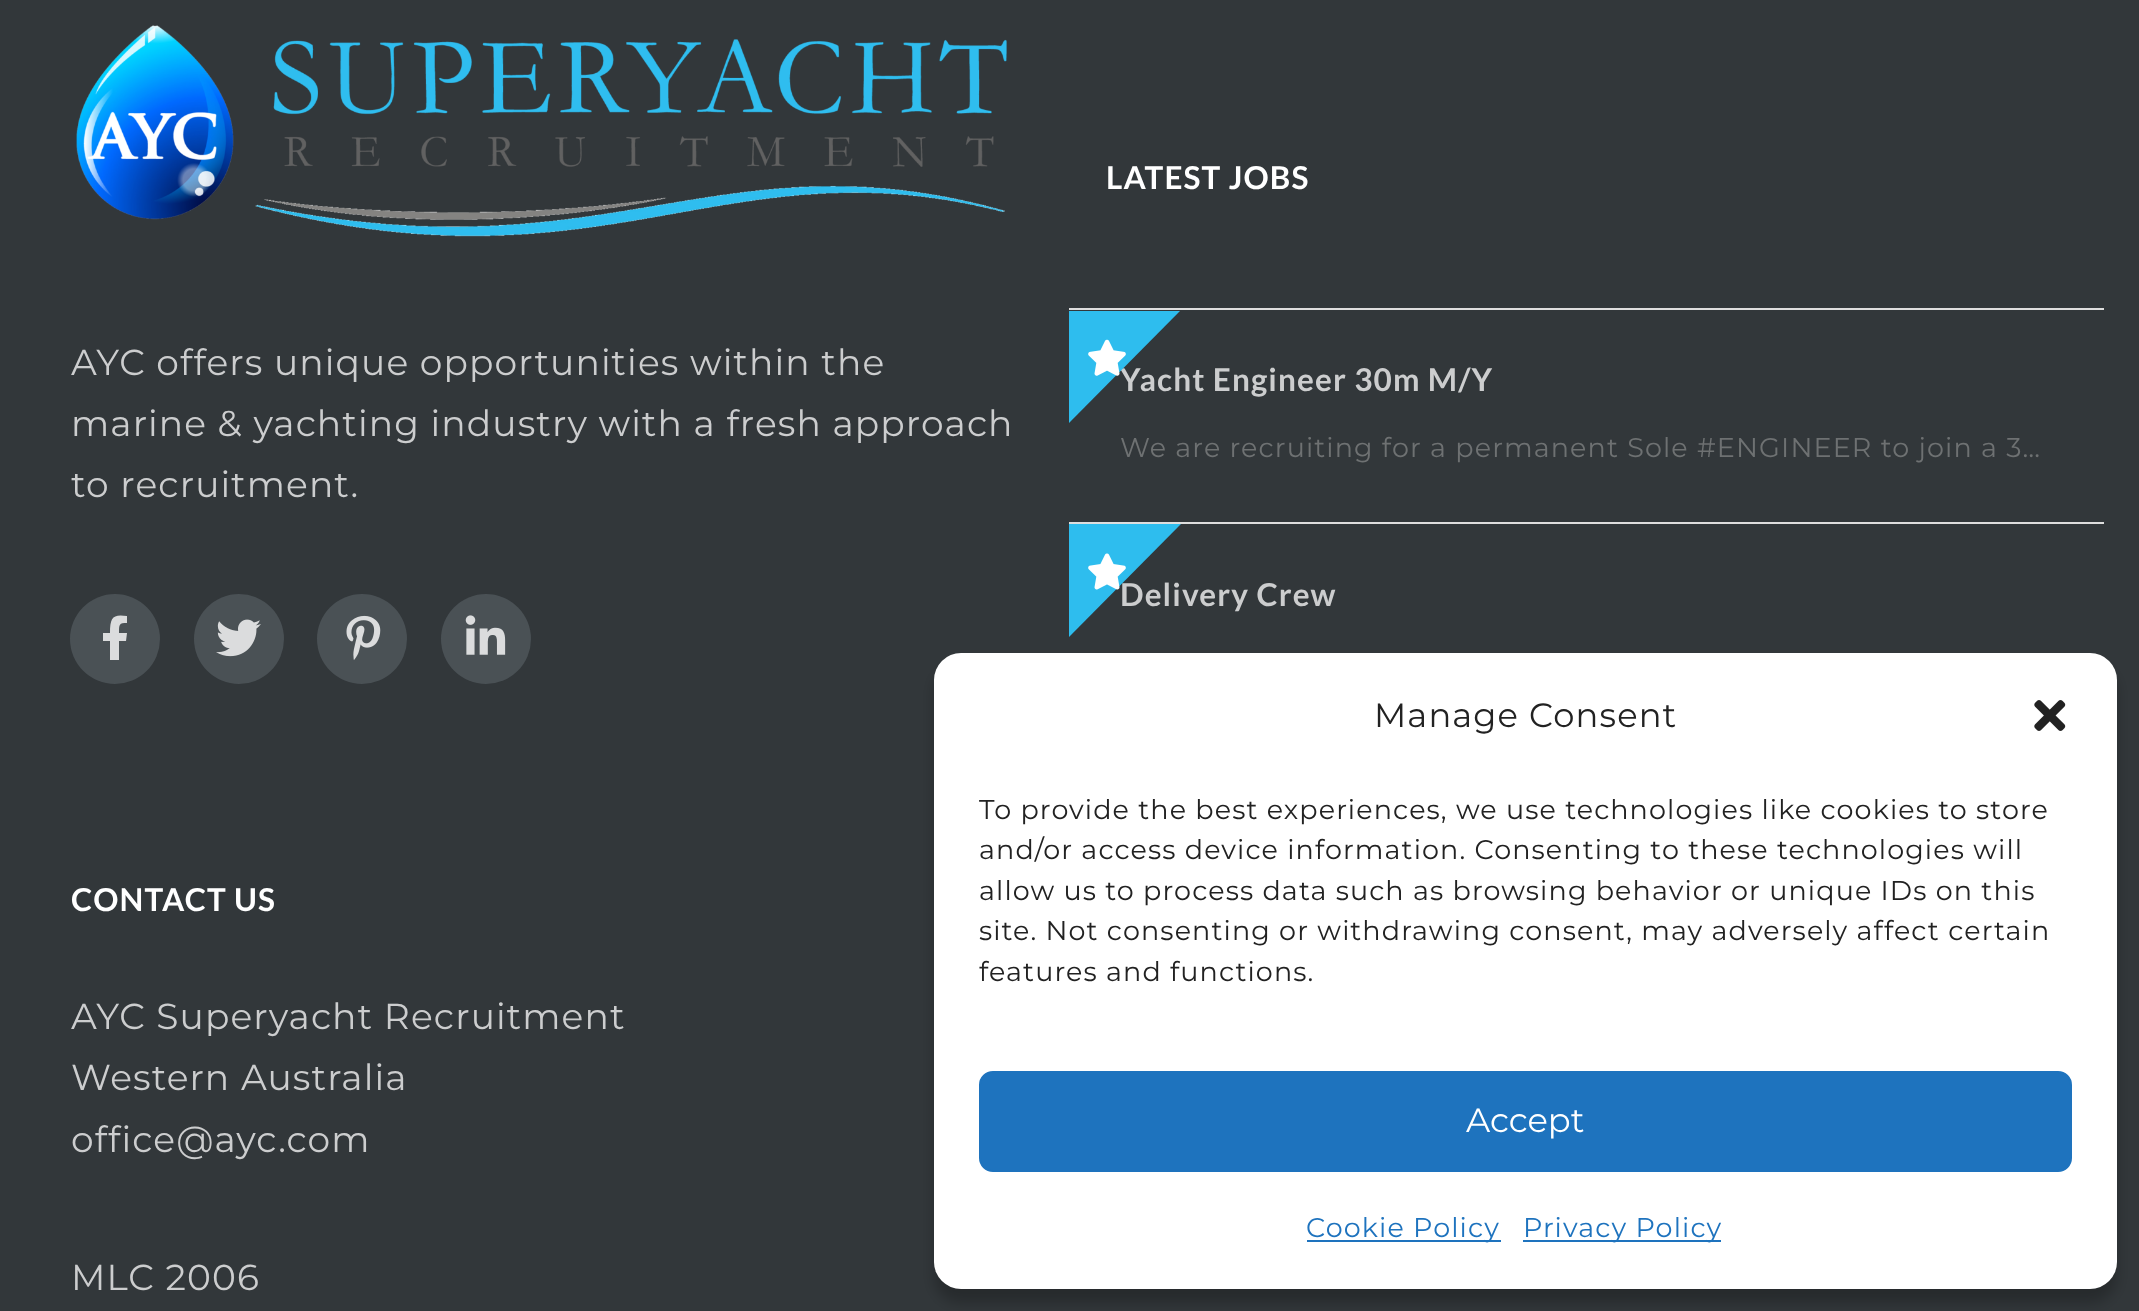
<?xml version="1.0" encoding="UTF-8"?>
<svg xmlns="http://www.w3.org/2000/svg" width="2139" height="1311">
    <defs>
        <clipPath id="clip1"><rect x="1069" y="311" width="1035" height="211"/></clipPath>
        <filter id="blur1" x="-50%" y="-200%" width="200%" height="500%"><feGaussianBlur stdDeviation="7"/></filter>
    </defs>
    <rect width="100%" height="100%" fill="#32373A"/>
    <image x="76" y="25" width="931" height="212" href="img_01.png"/>
    <text font-family="Montserrat" font-size="36" letter-spacing="1.12" fill="#CCCDCE">
        <tspan x="71" y="375">AYC offers unique opportunities within the</tspan>
        <tspan x="71" y="436">marine &amp; yachting industry with a fresh approach</tspan>
        <tspan x="71" y="497">to recruitment.</tspan>
    </text>
    <circle cx="115" cy="639" r="45" fill="#4A5155"/>
    <path d="M 126 641 H 119 V 660 H 110 V 641 H 103 V 633 H 110 C 110 617 113 614 127 616 V 623 C 119 623 119 624 119 633 H 127 Z" fill="#DBDCDD"/>
    <circle cx="239" cy="639" r="45" fill="#4A5155"/>
    <image x="216" y="619" width="45" height="38" href="img_02.png"/>
    <circle cx="362" cy="639" r="45" fill="#4A5155"/>
    <image x="346" y="615" width="35" height="45" href="img_03.png"/>
    <circle cx="486" cy="639" r="45" fill="#4A5155"/>
    <image x="465" y="615" width="41" height="40" href="img_04.png"/>
    <text x="1106" y="189" font-family="Lato" font-size="31.5" font-weight="700" letter-spacing="1.12" fill="#FFFFFF">LATEST JOBS</text>
    <rect x="1069" y="308" width="1035" height="2" fill="#DEDEDE"/>
    <text x="1120" y="391" font-family="Lato" font-size="31.5" font-weight="700" letter-spacing="1.12" fill="#CCCDCE">Yacht Engineer 30m M/Y</text>
    <g clip-path="url(#clip1)">
        <path d="M 1069 423 V 310 H 1181 Z" fill="#2EBDEE"/>
    </g>
    <image x="1088" y="339" width="38" height="37" href="img_05.png"/>
    <text x="1120" y="457" font-family="Montserrat" font-size="27" letter-spacing="1.12" fill="#6E7172">We are recruiting for a permanent Sole #ENGINEER to join a 3…</text>
    <rect x="1069" y="522" width="1035" height="2" fill="#DEDEDE"/>
    <text x="1120" y="606" font-family="Lato" font-size="31.5" font-weight="700" letter-spacing="1.12" fill="#CCCDCE">Delivery Crew</text>
    <path d="M 1069 637 V 524 H 1181 Z" fill="#2EBDEE"/>
    <image x="1088" y="553" width="38" height="37" href="img_06.png"/>
    <text x="71" y="911" font-family="Lato" font-size="31.5" font-weight="700" letter-spacing="1.12" fill="#FFFFFF">CONTACT US</text>
    <text font-family="Montserrat" font-size="36" letter-spacing="1.12" fill="#CCCDCE">
        <tspan x="71" y="1029">AYC Superyacht Recruitment</tspan>
        <tspan x="71" y="1090">Western Australia</tspan>
        <tspan x="71" y="1152">office@ayc.com</tspan>
    </text>
    <text x="71" y="1290" font-family="Montserrat" font-size="36" letter-spacing="1.12" fill="#CCCDCE">MLC 2006</text>
    <rect x="934" y="666" width="1183" height="637" rx="27" fill="#000000" fill-opacity="0.23" filter="url(#blur1)"/>
    <rect x="934" y="653" width="1183" height="636" rx="27" fill="#FFFFFF"/>
    <text x="1374" y="727" font-family="Montserrat" font-size="33.75" letter-spacing="1.12" fill="#222222">Manage Consent</text>
    <image x="2034" y="700" width="32" height="31" href="img_07.png"/>
    <text font-family="Montserrat" font-size="27" letter-spacing="1.12" fill="#222222">
        <tspan x="979" y="819">To provide the best experiences, we use technologies like cookies to store</tspan>
        <tspan x="979" y="859">and/or access device information. Consenting to these technologies will</tspan>
        <tspan x="979" y="900">allow us to process data such as browsing behavior or unique IDs on this</tspan>
        <tspan x="979" y="940">site. Not consenting or withdrawing consent, may adversely affect certain</tspan>
        <tspan x="979" y="981">features and functions.</tspan>
    </text>
    <rect x="980" y="1072" width="1091" height="99" rx="13" fill="#1E73BE" stroke="#1E73BE" stroke-width="2"/>
    <text x="1466" y="1132" font-family="Montserrat" font-size="33.75" fill="#FFFFFF">Accept</text>
    <rect x="1307" y="1240" width="194" height="2" fill="#1E73BE"/>
    <text x="1306" y="1237" font-family="Montserrat" font-size="27" letter-spacing="1.12" fill="#1E73BE">Cookie Policy</text>
    <rect x="1523" y="1240" width="198" height="2" fill="#1E73BE"/>
    <text x="1523" y="1237" font-family="Montserrat" font-size="27" letter-spacing="1.12" fill="#1E73BE">Privacy Policy</text>
</svg>
